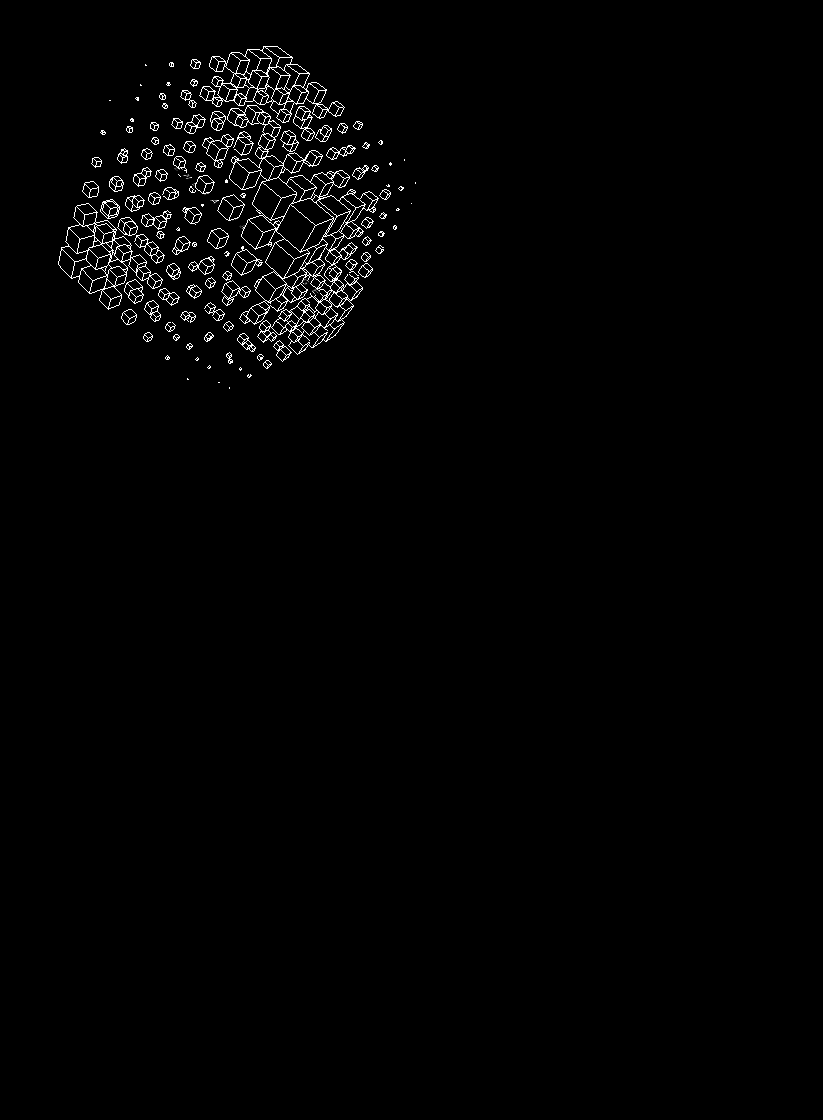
<?xml version="1.0" encoding="UTF-8"?>
<svg xmlns="http://www.w3.org/2000/svg" width="823" height="1120">
    <rect width="100%" height="100%" fill="#000000"/>
    <image x="58" y="46" width="358" height="343" href="img_01.png"/>
</svg>
